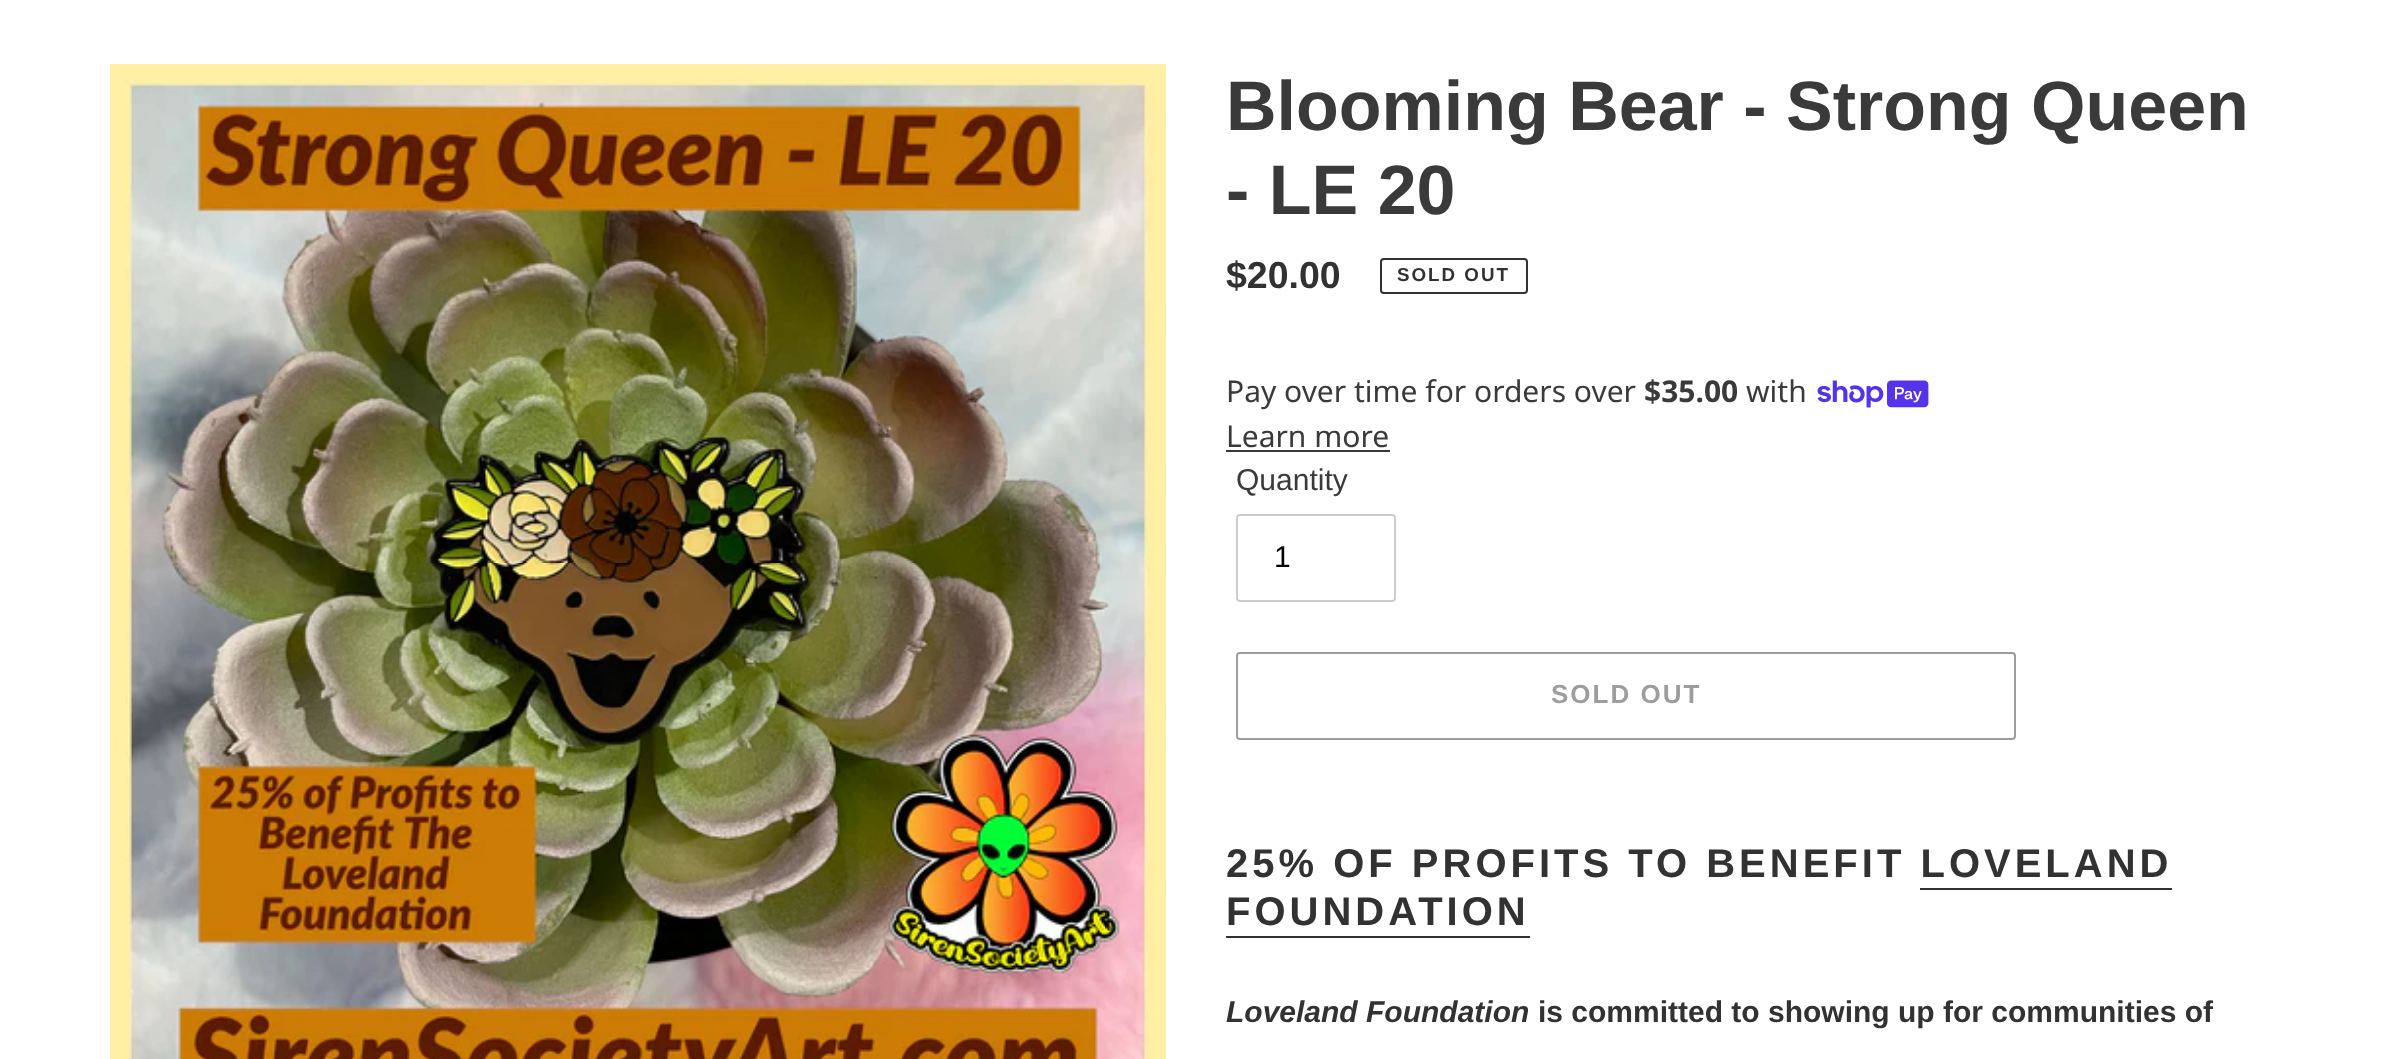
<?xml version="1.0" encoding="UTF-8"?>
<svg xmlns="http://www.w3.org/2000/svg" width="2392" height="1059">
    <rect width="100%" height="100%" fill="#FFFFFF"/>
    <image x="110" y="64" width="1056" height="995" href="img_01.png"/>
    <text font-family="Liberation Sans" font-size="70" font-weight="700" fill="#3A3A3A">
        <tspan x="1226" y="130">Blooming Bear - Strong Queen</tspan>
        <tspan x="1226" y="214">- LE 20</tspan>
    </text>
    <text x="1226" y="288" font-family="Liberation Sans" font-size="37.5" font-weight="700" fill="#333232">$20.00</text>
    <rect x="1381" y="259" width="146" height="34" rx="3" fill="none" stroke="#333232" stroke-width="2"/>
    <text x="1397" y="281" font-family="Liberation Sans" font-size="18.75" font-weight="700" letter-spacing="2" fill="#333232">SOLD OUT</text>
    <text x="1226" y="402" font-family="Noto Sans" font-size="30" fill="#3A3A3A">Pay over time for orders over</text>
    <text x="1644" y="402" font-family="Noto Sans" font-size="30" font-weight="700" fill="#3A3A3A">$35.00</text>
    <text x="1746" y="402" font-family="Noto Sans" font-size="30" fill="#3A3A3A">with</text>
    <image x="1817" y="380" width="112" height="28" href="img_02.png"/>
    <text x="1226" y="447" font-family="Noto Sans" font-size="30" fill="#3A3A3A">Learn more</text>
    <rect x="1226" y="450" width="164" height="2" fill="#3A3A3A"/>
    <text x="1236" y="490" font-family="Liberation Sans" font-size="30" fill="#3A3A3A">Quantity</text>
    <rect x="1237" y="515" width="158" height="86" rx="3" fill="none" stroke="#CCCCCC" stroke-width="2"/>
    <text x="1274" y="567" font-family="Liberation Sans" font-size="30" fill="#000000">1</text>
    <rect x="1237" y="653" width="778" height="86" rx="3" fill="none" stroke="#9D9D9D" stroke-width="2"/>
    <text x="1551" y="703" font-family="Liberation Sans" font-size="26" font-weight="700" letter-spacing="2" fill="#9D9D9D">SOLD OUT</text>
    <text x="1226" y="877" font-family="Liberation Sans" font-size="40" font-weight="700" letter-spacing="4" fill="#333232">25% OF PROFITS TO BENEFIT LOVELAND</text>
    <rect x="1920" y="888" width="252" height="2" fill="#333232"/>
    <text x="1226" y="925" font-family="Liberation Sans" font-size="40" font-weight="700" letter-spacing="4" fill="#333232">FOUNDATION</text>
    <rect x="1226" y="936" width="304" height="2" fill="#333232"/>
    <text x="1226" y="1022" font-family="Liberation Sans" font-size="30" font-weight="700" font-style="italic" fill="#333232">Loveland Foundation</text>
    <text x="1538" y="1022" font-family="Liberation Sans" font-size="30" font-weight="700" fill="#333232">is committed to showing up for communities of</text>
</svg>
